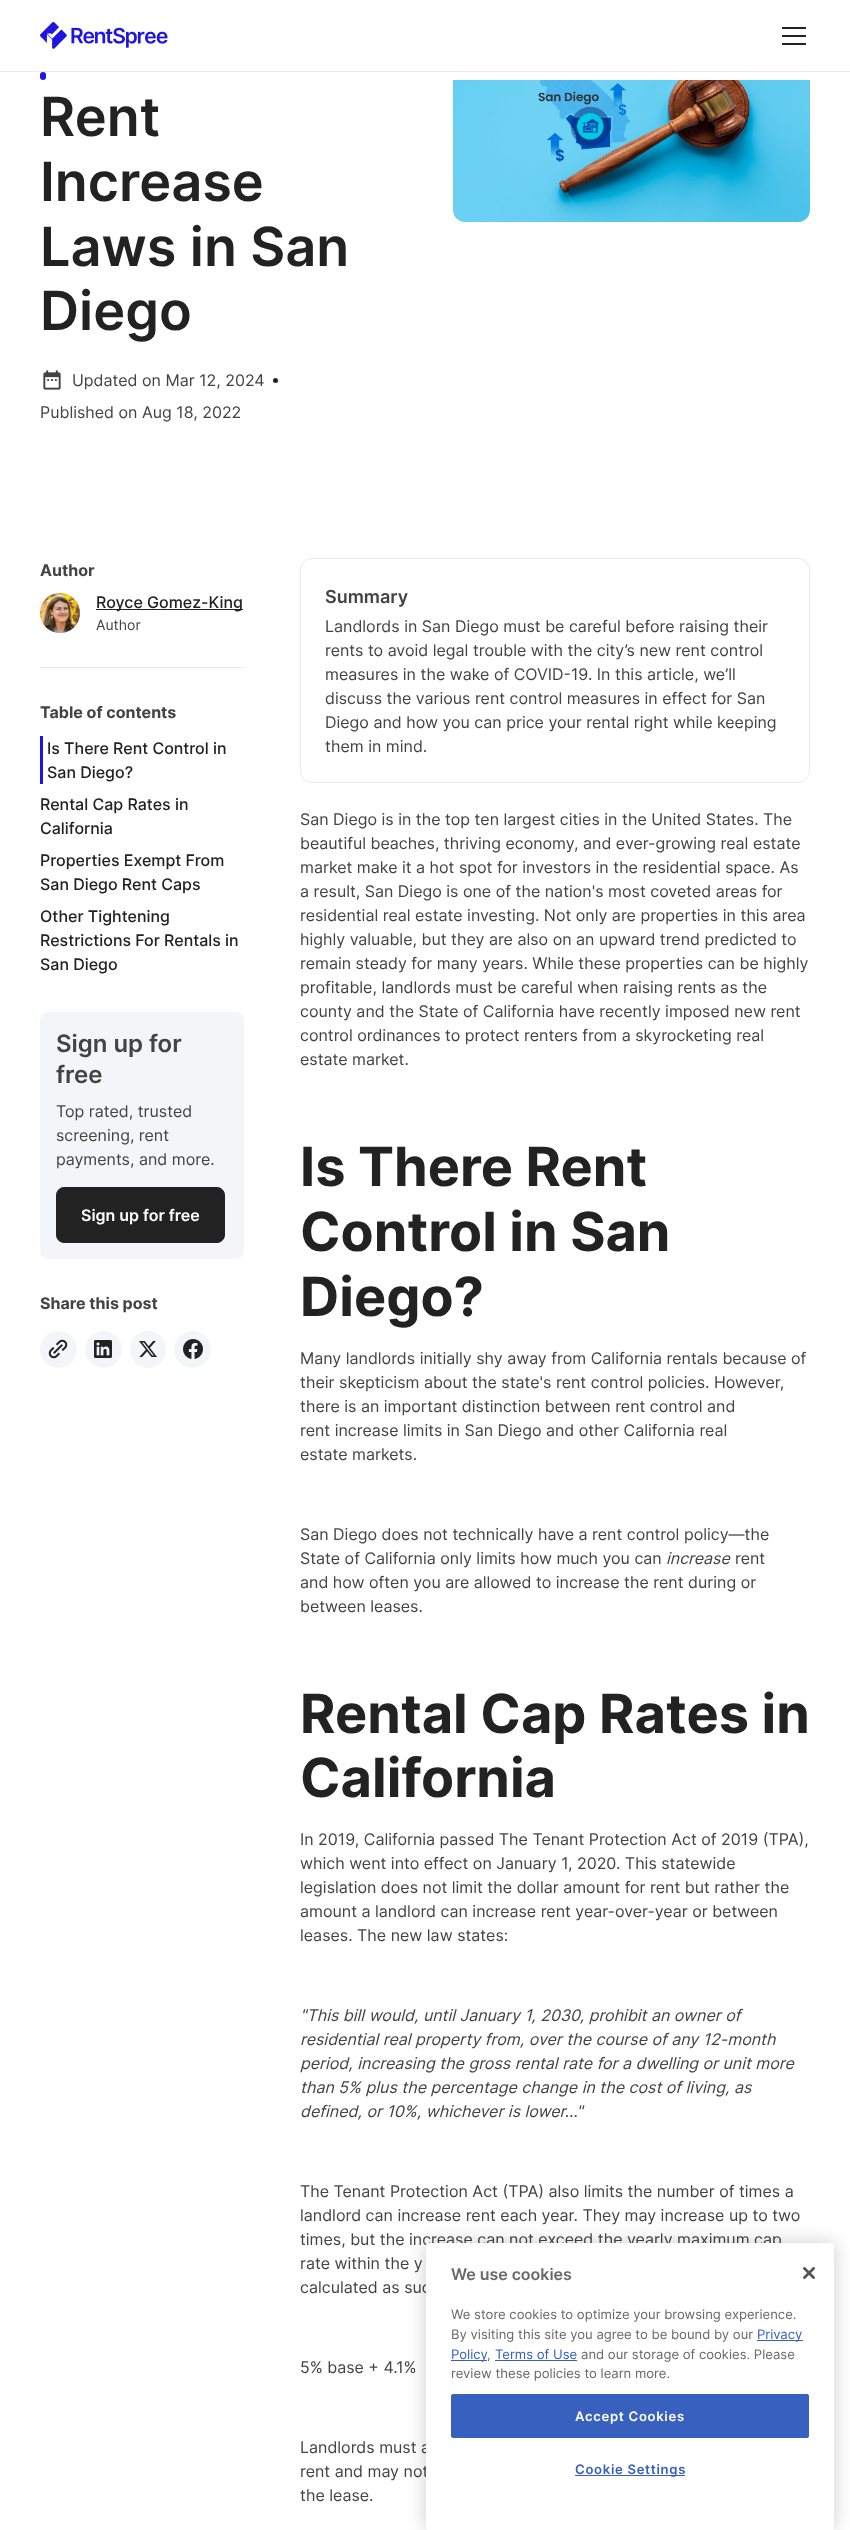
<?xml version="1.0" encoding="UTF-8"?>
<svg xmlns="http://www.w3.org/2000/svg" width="850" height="2530">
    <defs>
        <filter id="blur1" x="-50%" y="-200%" width="200%" height="500%"><feGaussianBlur stdDeviation="9"/></filter>
    </defs>
    <rect width="100%" height="100%" fill="#FFFFFF"/>
    <image x="40" y="22" width="128" height="27" href="img_01.png"/>
    <rect x="782" y="27" width="24" height="2" fill="#222222"/>
    <rect x="782" y="35" width="24" height="2" fill="#222222"/>
    <rect x="782" y="43" width="24" height="2" fill="#222222"/>
    <rect x="0" y="71" width="850" height="1" fill="#EAEAEF"/>
    <rect x="40" y="72" width="6" height="8" rx="3" fill="#1F15E1"/>
    <text font-family="Inter" font-size="54" font-weight="600" fill="#222222">
        <tspan x="40" y="136">Rent</tspan>
        <tspan x="40" y="201">Increase</tspan>
        <tspan x="40" y="266">Laws in San</tspan>
        <tspan x="40" y="330">Diego</tspan>
    </text>
    <image x="43" y="370" width="18" height="20" href="img_02.png"/>
    <text x="72" y="386" font-family="Inter" font-size="16" fill="#434343">Updated on Mar 12, 2024</text>
    <circle cx="275.5" cy="380.5" r="2.5" fill="#222222"/>
    <text x="40" y="418" font-family="Inter" font-size="16" fill="#434343">Published on Aug 18, 2022</text>
    <image x="453" y="80" width="357" height="142" href="img_03.png"/>
    <text x="40" y="576" font-family="Inter" font-size="16" font-weight="700" fill="#434343">Author</text>
    <image x="40" y="593" width="40" height="40" href="img_04.png"/>
    <rect x="96" y="609" width="147" height="1" fill="#222222"/>
    <text x="96" y="608" font-family="Inter" font-size="16" font-weight="500" fill="#222222">Royce Gomez-King</text>
    <text x="96" y="630" font-family="Inter" font-size="14" fill="#434343">Author</text>
    <rect x="40" y="667" width="204" height="1" fill="#EAEAEF"/>
    <text x="40" y="718" font-family="Inter" font-size="16" font-weight="700" fill="#434343">Table of contents</text>
    <rect x="40" y="736" width="3" height="48" fill="#1F15E1"/>
    <text font-family="Inter" font-size="16" font-weight="500" fill="#222222">
        <tspan x="47" y="754">Is There Rent Control in</tspan>
        <tspan x="47" y="778">San Diego?</tspan>
    </text>
    <text font-family="Inter" font-size="16" font-weight="500" fill="#222222">
        <tspan x="40" y="810">Rental Cap Rates in</tspan>
        <tspan x="40" y="834">California</tspan>
    </text>
    <text font-family="Inter" font-size="16" font-weight="500" fill="#222222">
        <tspan x="40" y="866">Properties Exempt From</tspan>
        <tspan x="40" y="890">San Diego Rent Caps</tspan>
    </text>
    <text font-family="Inter" font-size="16" font-weight="500" fill="#222222">
        <tspan x="40" y="922">Other Tightening</tspan>
        <tspan x="40" y="946">Restrictions For Rentals in</tspan>
        <tspan x="40" y="970">San Diego</tspan>
    </text>
    <rect x="40" y="1012" width="204" height="247" rx="8" fill="#F4F5F8"/>
    <text font-family="Inter" font-size="24" font-weight="600" fill="#434343">
        <tspan x="56" y="1052">Sign up for</tspan>
        <tspan x="56" y="1083">free</tspan>
    </text>
    <text font-family="Inter" font-size="16" fill="#434343">
        <tspan x="56" y="1117">Top rated, trusted</tspan>
        <tspan x="56" y="1141">screening, rent</tspan>
        <tspan x="56" y="1165">payments, and more.</tspan>
    </text>
    <rect x="56.5" y="1187.5" width="168" height="55" rx="7.5" fill="#222222" stroke="#222222"/>
    <text x="81" y="1221" font-family="Inter" font-size="16" font-weight="600" fill="#FFFFFF">Sign up for free</text>
    <text x="40" y="1309" font-family="Inter" font-size="16" font-weight="700" fill="#434343">Share this post</text>
    <circle cx="58.5" cy="1349.5" r="18.5" fill="#F4F5F8"/>
    <image x="48" y="1339" width="20" height="20" href="img_05.png"/>
    <circle cx="103.5" cy="1349.5" r="18.5" fill="#F4F5F8"/>
    <image x="94" y="1340" width="18" height="18" href="img_06.png"/>
    <rect x="130" y="1331" width="36" height="37" rx="18" fill="#F4F5F8"/>
    <image x="139" y="1341" width="18" height="16" href="img_07.png"/>
    <circle cx="192.5" cy="1349.5" r="18.5" fill="#F4F5F8"/>
    <image x="183" y="1339" width="20" height="20" href="img_08.png"/>
    <rect x="300.5" y="558.5" width="509" height="224" rx="11.5" fill="none" stroke="#EAEAEF"/>
    <text x="325" y="603" font-family="Inter" font-size="18" font-weight="600" fill="#434343">Summary</text>
    <text font-family="Inter" font-size="16" fill="#434343">
        <tspan x="325" y="632">Landlords in San Diego must be careful before raising their</tspan>
        <tspan x="325" y="656">rents to avoid legal trouble with the city’s new rent control</tspan>
        <tspan x="325" y="680">measures in the wake of COVID-19. In this article, we’ll</tspan>
        <tspan x="325" y="704">discuss the various rent control measures in effect for San</tspan>
        <tspan x="325" y="728">Diego and how you can price your rental right while keeping</tspan>
        <tspan x="325" y="752">them in mind.</tspan>
    </text>
    <text font-family="Inter" font-size="16" fill="#434343">
        <tspan x="300" y="825">San Diego is in the top ten largest cities in the United States. The</tspan>
        <tspan x="300" y="849">beautiful beaches, thriving economy, and ever-growing real estate</tspan>
        <tspan x="300" y="873">market make it a hot spot for investors in the residential space. As</tspan>
        <tspan x="300" y="897">a result, San Diego is one of the nation's most coveted areas for</tspan>
        <tspan x="300" y="921">residential real estate investing. Not only are properties in this area</tspan>
        <tspan x="300" y="945">highly valuable, but they are also on an upward trend predicted to</tspan>
        <tspan x="300" y="969">remain steady for many years. While these properties can be highly</tspan>
        <tspan x="300" y="993">profitable, landlords must be careful when raising rents as the</tspan>
        <tspan x="300" y="1017">county and the State of California have recently imposed new rent</tspan>
        <tspan x="300" y="1041">control ordinances to protect renters from a skyrocketing real</tspan>
        <tspan x="300" y="1065">estate market.</tspan>
    </text>
    <text font-family="Inter" font-size="54" font-weight="700" fill="#222222">
        <tspan x="300" y="1186">Is There Rent</tspan>
        <tspan x="300" y="1251">Control in San</tspan>
        <tspan x="300" y="1316">Diego?</tspan>
    </text>
    <text font-family="Inter" font-size="16" fill="#434343">
        <tspan x="300" y="1364">Many landlords initially shy away from California rentals because of</tspan>
        <tspan x="300" y="1388">their skepticism about the state's rent control policies. However,</tspan>
        <tspan x="300" y="1412">there is an important distinction between rent control and</tspan>
        <tspan x="300" y="1436">rent increase limits in San Diego and other California real</tspan>
        <tspan x="300" y="1460">estate markets.</tspan>
    </text>
    <text font-family="Inter" font-size="16" fill="#434343">
        <tspan x="300" y="1540">San Diego does not technically have a rent control policy—the</tspan>
        <tspan x="300" y="1564">State of California only limits how much you can</tspan>
    </text>
    <text x="666" y="1564" font-family="Inter" font-size="16" font-style="italic" fill="#434343">increase</text>
    <text x="735" y="1564" font-family="Inter" font-size="16" fill="#434343">rent</text>
    <text font-family="Inter" font-size="16" fill="#434343">
        <tspan x="300" y="1588">and how often you are allowed to increase the rent during or</tspan>
        <tspan x="300" y="1612">between leases.</tspan>
    </text>
    <text font-family="Inter" font-size="54" font-weight="700" fill="#222222">
        <tspan x="300" y="1733">Rental Cap Rates in</tspan>
        <tspan x="300" y="1797">California</tspan>
    </text>
    <text font-family="Inter" font-size="16" fill="#434343">
        <tspan x="300" y="1845">In 2019, California passed The Tenant Protection Act of 2019 (TPA),</tspan>
        <tspan x="300" y="1869">which went into effect on January 1, 2020. This statewide</tspan>
        <tspan x="300" y="1893">legislation does not limit the dollar amount for rent but rather the</tspan>
        <tspan x="300" y="1917">amount a landlord can increase rent year-over-year or between</tspan>
        <tspan x="300" y="1941">leases. The new law states:</tspan>
    </text>
    <text font-family="Inter" font-size="16" font-style="italic" fill="#434343">
        <tspan x="300" y="2021">"This bill would, until January 1, 2030, prohibit an owner of</tspan>
        <tspan x="300" y="2045">residential real property from, over the course of any 12-month</tspan>
        <tspan x="300" y="2069">period, increasing the gross rental rate for a dwelling or unit more</tspan>
        <tspan x="300" y="2093">than 5% plus the percentage change in the cost of living, as</tspan>
        <tspan x="300" y="2117">defined, or 10%, whichever is lower…"</tspan>
    </text>
    <text font-family="Inter" font-size="16" fill="#434343">
        <tspan x="300" y="2197">The Tenant Protection Act (TPA) also limits the number of times a</tspan>
        <tspan x="300" y="2221">landlord can increase rent each year. They may increase up to two</tspan>
        <tspan x="300" y="2245">times, but the increase can not exceed the yearly maximum cap</tspan>
        <tspan x="300" y="2269">rate within the y</tspan>
        <tspan x="300" y="2293">calculated as suc</tspan>
    </text>
    <text x="300" y="2373" font-family="Inter" font-size="16" fill="#434343">5% base + 4.1%</text>
    <text font-family="Inter" font-size="16" fill="#434343">
        <tspan x="300" y="2453">Landlords must a</tspan>
        <tspan x="300" y="2477">rent and may not</tspan>
        <tspan x="300" y="2501">the lease.</tspan>
    </text>
    <rect x="426" y="2243" width="408" height="287" rx="2.5" fill="#000000" fill-opacity="0.2" filter="url(#blur1)"/>
    <rect x="426" y="2243" width="408" height="287" rx="2.5" fill="#FFFFFF"/>
    <text x="451" y="2280" font-family="Inter" font-size="16" font-weight="600" fill="#696969">We use cookies</text>
    <text font-family="Inter" font-size="13.1" fill="#696969">
        <tspan x="451" y="2319">We store cookies to optimize your browsing experience.</tspan>
        <tspan x="451" y="2339">By visiting this site you agree to be bound by our</tspan>
    </text>
    <rect x="757" y="2340" width="46" height="1" fill="#3860BE"/>
    <text x="757" y="2339" font-family="Inter" font-size="13.1" fill="#3860BE">Privacy</text>
    <rect x="451" y="2360" width="36" height="1" fill="#3860BE"/>
    <text x="451" y="2359" font-family="Inter" font-size="13.1" fill="#3860BE">Policy</text>
    <text x="487" y="2359" font-family="Inter" font-size="13.1" fill="#696969">,</text>
    <text x="495" y="2359" font-family="Inter" font-size="13.1" fill="#3860BE">Terms of Use</text>
    <rect x="495" y="2360" width="82" height="1" fill="#3860BE"/>
    <text x="581" y="2359" font-family="Inter" font-size="13.1" fill="#696969">and our storage of cookies. Please</text>
    <text x="451" y="2378" font-family="Inter" font-size="13.1" fill="#696969">review these policies to learn more.</text>
    <image x="803" y="2267" width="12" height="12" href="img_09.png"/>
    <rect x="451.5" y="2394.5" width="357" height="43" rx="1.5" fill="#3860BE" stroke="#3860BE"/>
    <text x="575" y="2421" font-family="Inter" font-size="13.1" font-weight="600" letter-spacing="0.7" fill="#FFFFFF">Accept Cookies</text>
    <rect x="575" y="2475" width="110" height="1" fill="#3860BE"/>
    <text x="575" y="2474" font-family="Inter" font-size="13.1" font-weight="600" letter-spacing="0.7" fill="#3860BE">Cookie Settings</text>
</svg>
